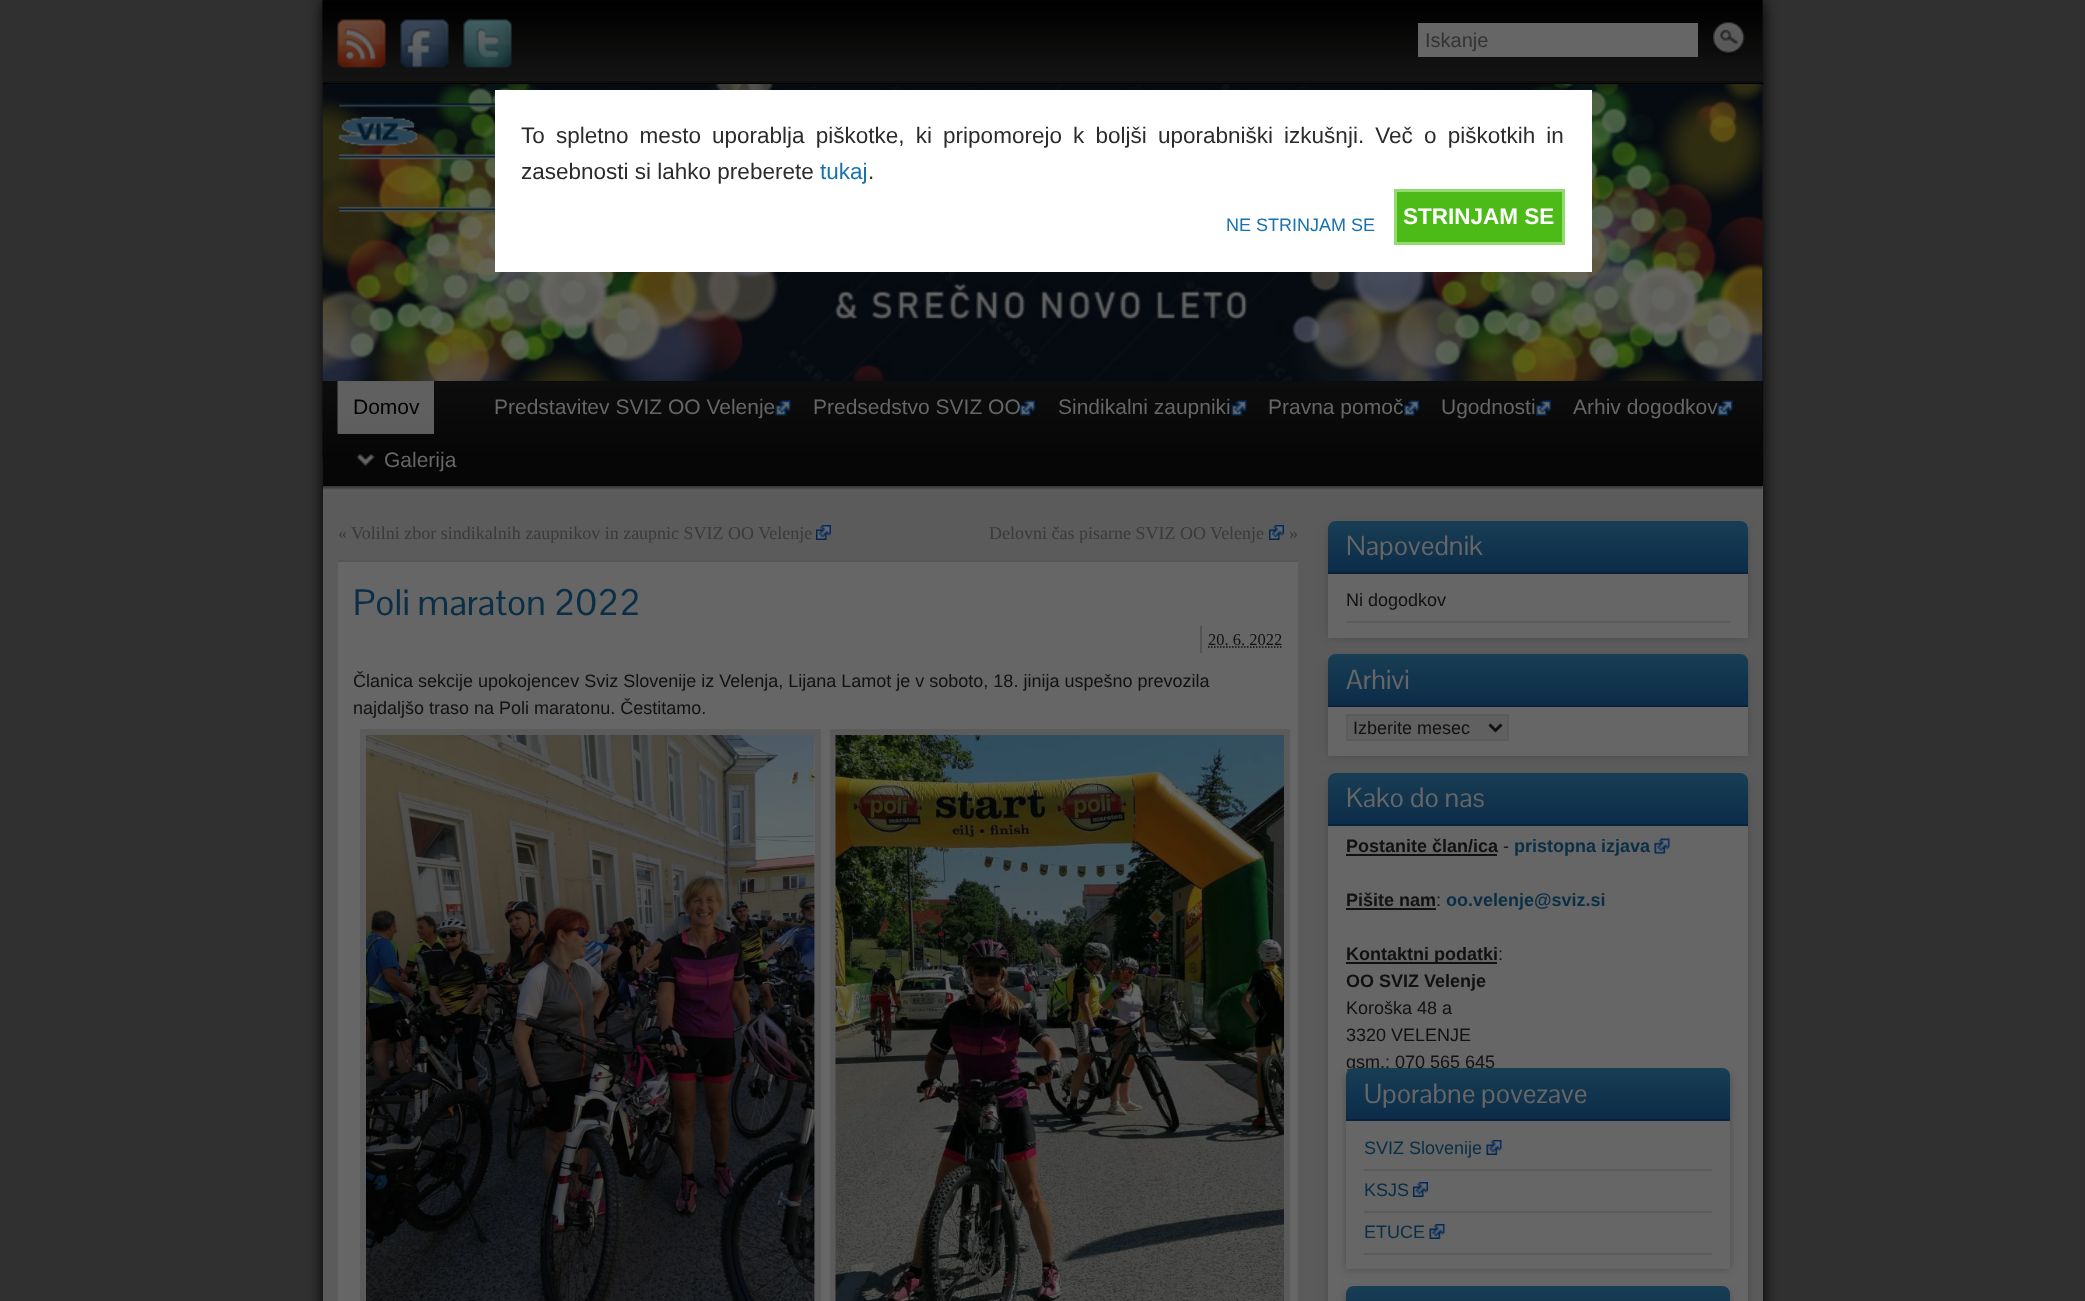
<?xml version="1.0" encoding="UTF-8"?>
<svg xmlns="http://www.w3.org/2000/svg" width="2085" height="1301">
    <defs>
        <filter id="blur1" x="-50%" y="-200%" width="200%" height="500%"><feGaussianBlur stdDeviation="7.5"/></filter>
        <filter id="blur2" x="-50%" y="-200%" width="200%" height="500%"><feGaussianBlur stdDeviation="4"/></filter>
        <linearGradient id="g1" gradientUnits="userSpaceOnUse" x1="1538" y1="521" x2="1538" y2="572"><stop offset="0" stop-color="#183E54"/><stop offset="1" stop-color="#0C2C49"/></linearGradient>
        <linearGradient id="g2" gradientUnits="userSpaceOnUse" x1="1538" y1="654" x2="1538" y2="705"><stop offset="0" stop-color="#183E54"/><stop offset="1" stop-color="#0C2C49"/></linearGradient>
        <linearGradient id="g3" gradientUnits="userSpaceOnUse" x1="1538" y1="773" x2="1538" y2="824"><stop offset="0" stop-color="#183E54"/><stop offset="1" stop-color="#0C2C49"/></linearGradient>
        <linearGradient id="g4" gradientUnits="userSpaceOnUse" x1="1538" y1="1068" x2="1538" y2="1119"><stop offset="0" stop-color="#183E54"/><stop offset="1" stop-color="#0C2C49"/></linearGradient>
        <linearGradient id="g5" gradientUnits="userSpaceOnUse" x1="1538" y1="1286" x2="1538" y2="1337"><stop offset="0" stop-color="#183E54"/><stop offset="1" stop-color="#0C2C49"/></linearGradient>
    </defs>
    <rect width="100%" height="100%" fill="#303030"/>
    <rect x="323" y="0" width="1440" height="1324" fill="#000000" filter="url(#blur1)"/>
    <rect x="323" y="0" width="1440" height="81" fill="#141413"/>
    <image x="322" y="0" width="1441" height="81" href="img_01.png"/>
    <rect x="323" y="81" width="1440" height="2" fill="#0E0E0E"/>
    <image x="337" y="19" width="49" height="49" href="img_02.png"/>
    <image x="400" y="19" width="49" height="49" href="img_03.png"/>
    <image x="463" y="19" width="49" height="49" href="img_04.png"/>
    <rect x="1418" y="23" width="280" height="34" fill="#666666"/>
    <text x="1425" y="47" font-family="Liberation Sans" font-size="20" fill="#333333">Iskanje</text>
    <image x="1713" y="22" width="32" height="35" href="img_05.png"/>
    <rect x="323" y="83" width="1440" height="2" fill="#000000"/>
    <image x="322" y="84" width="1441" height="297" href="img_06.png"/>
    <image x="338" y="103" width="157" height="109" href="img_07.png"/>
    <rect x="323" y="381" width="1440" height="105" fill="#060606"/>
    <image x="322" y="381" width="1441" height="77" href="img_08.png"/>
    <rect x="338" y="381" width="96" height="53" fill="#5F5F5F"/>
    <image x="337" y="381" width="96" height="53" href="img_09.png"/>
    <text x="353" y="414" font-family="Liberation Sans" font-size="21" fill="#000000">Domov</text>
    <image x="775" y="400" width="16" height="16" href="img_10.png"/>
    <text x="494" y="414" font-family="Liberation Sans" font-size="21" fill="#666666">Predstavitev SVIZ OO Velenje</text>
    <image x="1020" y="400" width="15" height="16" href="img_11.png"/>
    <text x="813" y="414" font-family="Liberation Sans" font-size="21" fill="#666666">Predsedstvo SVIZ OO</text>
    <image x="1231" y="400" width="16" height="16" href="img_10.png"/>
    <text x="1058" y="414" font-family="Liberation Sans" font-size="21" fill="#666666">Sindikalni zaupniki</text>
    <image x="1404" y="400" width="15" height="16" href="img_12.png"/>
    <text x="1268" y="414" font-family="Liberation Sans" font-size="21" fill="#666666">Pravna pomoč</text>
    <image x="1536" y="400" width="15" height="16" href="img_12.png"/>
    <text x="1441" y="414" font-family="Liberation Sans" font-size="21" fill="#666666">Ugodnosti</text>
    <image x="1717" y="400" width="16" height="16" href="img_10.png"/>
    <text x="1573" y="414" font-family="Liberation Sans" font-size="21" fill="#666666">Arhiv dogodkov</text>
    <image x="356" y="454" width="20" height="13" href="img_13.png"/>
    <text x="384" y="467" font-family="Liberation Sans" font-size="21" fill="#666666">Galerija</text>
    <rect x="323" y="486" width="1440" height="5" fill="#5F5F5F"/>
    <image x="322" y="486" width="1441" height="4" href="img_14.png"/>
    <rect x="323" y="491" width="1440" height="810" fill="#5B5B5B"/>
    <text x="338" y="539" font-family="Liberation Serif" font-size="18" fill="#3A3A3A">«</text>
    <text x="351" y="539" font-family="Liberation Serif" font-size="18" fill="#3A3A3A">Volilni zbor sindikalnih zaupnikov in zaupnic SVIZ OO Velenje</text>
    <image x="816" y="525" width="15" height="15" href="img_15.png"/>
    <text x="989" y="539" font-family="Liberation Serif" font-size="18" fill="#3A3A3A">Delovni čas pisarne SVIZ OO Velenje</text>
    <image x="1269" y="525" width="15" height="15" href="img_16.png"/>
    <text x="1289" y="539" font-family="Liberation Serif" font-size="18" fill="#3A3A3A">»</text>
    <rect x="338" y="562" width="960" height="739" fill="#666666"/>
    <rect x="338" y="560" width="960" height="2" fill="#565656"/>
    <text x="353" y="615" font-family="Pontano Sans" font-size="36" fill="#092E46">Poli maraton 2022</text>
    <rect x="1200" y="626" width="2" height="27" fill="#525252"/>
    <text x="1208" y="645" font-family="Liberation Serif" font-size="16.5" fill="#121111">20. 6. 2022</text>
    <path d="M 1208 647 H 1282.5" fill="none" stroke="#121111" stroke-width="1.5" stroke-dasharray="1.5 1.5"/>
    <text font-family="Liberation Sans" font-size="18" fill="#121111">
        <tspan x="353" y="687">Članica sekcije upokojencev Sviz Slovenije iz Velenja, Lijana Lamot je v soboto, 18. jinija uspešno prevozila</tspan>
        <tspan x="353" y="714">najdaljšo traso na Poli maratonu. Čestitamo.</tspan>
    </text>
    <rect x="363" y="732" width="455" height="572" fill="none" stroke="#5B5B5B" stroke-width="6"/>
    <image x="366" y="735" width="449" height="566" href="img_17.png"/>
    <rect x="833" y="732" width="454" height="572" fill="none" stroke="#5B5B5B" stroke-width="6"/>
    <image x="835" y="735" width="449" height="566" href="img_18.png"/>
    <rect x="1328" y="528" width="420" height="110" fill="#4B4B4B" filter="url(#blur2)"/>
    <rect x="1328" y="528" width="420" height="110" fill="#666666"/>
    <path d="M 1336 521 H 1740 C 1744.5 521 1748 524.5 1748 529 V 572 H 1328 V 529 C 1328 524.5 1331.5 521 1336 521 Z" fill="url(#g1)"/>
    <rect x="1328" y="572" width="420" height="2" fill="#0A213A"/>
    <text x="1346" y="555" font-family="Pontano Sans" font-size="27" fill="#666666">Napovednik</text>
    <rect x="1346" y="621" width="384" height="2" fill="#5B5B5B"/>
    <text x="1346" y="606" font-family="Liberation Sans" font-size="18" fill="#121111">Ni dogodkov</text>
    <rect x="1328" y="662" width="420" height="94" fill="#4B4B4B" filter="url(#blur2)"/>
    <rect x="1328" y="707" width="420" height="49" fill="#666666"/>
    <path d="M 1336 654 H 1740 C 1744.5 654 1748 657.5 1748 662 V 705 H 1328 V 662 C 1328 657.5 1331.5 654 1336 654 Z" fill="url(#g2)"/>
    <rect x="1328" y="705" width="420" height="2" fill="#0A213A"/>
    <text x="1346" y="689" font-family="Pontano Sans" font-size="27" fill="#666666">Arhivi</text>
    <rect x="1347" y="715" width="161" height="25" fill="#606060" stroke="#5B5B5B" stroke-width="2"/>
    <path d="M 1489.5 724.5 L 1495.5 730.5 L 1501.5 724.5" fill="none" stroke="#121111" stroke-width="3"/>
    <text x="1353" y="734" font-family="Liberation Sans" font-size="18" fill="#121111">Izberite mesec</text>
    <rect x="1328" y="780" width="420" height="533" fill="#4B4B4B" filter="url(#blur2)"/>
    <rect x="1328" y="780" width="420" height="521" fill="#666666"/>
    <path d="M 1336 773 H 1740 C 1744.5 773 1748 776.5 1748 781 V 824 H 1328 V 781 C 1328 776.5 1331.5 773 1336 773 Z" fill="url(#g3)"/>
    <rect x="1328" y="824" width="420" height="2" fill="#0A213A"/>
    <text x="1346" y="807" font-family="Pontano Sans" font-size="27" fill="#666666">Kako do nas</text>
    <text x="1346" y="852" font-family="Liberation Sans" font-size="18" font-weight="700" fill="#121111">Postanite član/ica</text>
    <rect x="1346" y="854" width="151" height="2" fill="#121111"/>
    <text x="1503" y="852" font-family="Liberation Sans" font-size="18" fill="#121111">-</text>
    <text x="1514" y="852" font-family="Liberation Sans" font-size="18" font-weight="700" fill="#092E46">pristopna izjava</text>
    <image x="1654" y="838" width="16" height="16" href="img_19.png"/>
    <text x="1346" y="906" font-family="Liberation Sans" font-size="18" font-weight="700" fill="#121111">Pišite nam</text>
    <rect x="1346" y="908" width="90" height="2" fill="#121111"/>
    <text x="1436" y="906" font-family="Liberation Sans" font-size="18" fill="#121111">:</text>
    <text x="1446" y="906" font-family="Liberation Sans" font-size="18" font-weight="700" fill="#092E46">oo.velenje@sviz.si</text>
    <rect x="1346" y="962" width="151" height="2" fill="#121111"/>
    <text x="1346" y="960" font-family="Liberation Sans" font-size="18" font-weight="700" fill="#121111">Kontaktni podatki</text>
    <text x="1498" y="960" font-family="Liberation Sans" font-size="18" fill="#121111">:</text>
    <text x="1346" y="987" font-family="Liberation Sans" font-size="18" font-weight="700" fill="#121111">OO SVIZ Velenje</text>
    <text font-family="Liberation Sans" font-size="18" fill="#121111">
        <tspan x="1346" y="1014">Koroška 48 a</tspan>
        <tspan x="1346" y="1041">3320 VELENJE</tspan>
        <tspan x="1346" y="1068">gsm.: 070 565 645</tspan>
    </text>
    <rect x="1346" y="1076" width="384" height="193" fill="#4B4B4B" filter="url(#blur2)"/>
    <rect x="1346" y="1121" width="384" height="148" fill="#666666"/>
    <path d="M 1354 1068 H 1722 C 1726.5 1068 1730 1071.5 1730 1076 V 1119 H 1346 V 1076 C 1346 1071.5 1349.5 1068 1354 1068 Z" fill="url(#g4)"/>
    <rect x="1346" y="1119" width="384" height="2" fill="#0A213A"/>
    <text x="1364" y="1103" font-family="Pontano Sans" font-size="27" fill="#666666">Uporabne povezave</text>
    <rect x="1364" y="1169" width="348" height="2" fill="#5B5B5B"/>
    <text x="1364" y="1154" font-family="Liberation Sans" font-size="18" fill="#092E46">SVIZ Slovenije</text>
    <image x="1486" y="1140" width="16" height="15" href="img_20.png"/>
    <rect x="1364" y="1211" width="348" height="2" fill="#5B5B5B"/>
    <text x="1364" y="1196" font-family="Liberation Sans" font-size="18" fill="#092E46">KSJS</text>
    <image x="1413" y="1182" width="15" height="15" href="img_21.png"/>
    <rect x="1364" y="1253" width="348" height="2" fill="#5B5B5B"/>
    <text x="1364" y="1238" font-family="Liberation Sans" font-size="18" fill="#092E46">ETUCE</text>
    <image x="1429" y="1224" width="16" height="15" href="img_20.png"/>
    <rect x="1346" y="1293" width="384" height="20" fill="#4B4B4B" filter="url(#blur2)"/>
    <path d="M 1354 1286 H 1722 C 1726.5 1286 1730 1289.5 1730 1294 V 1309 H 1346 V 1294 C 1346 1289.5 1349.5 1286 1354 1286 Z" fill="url(#g5)"/>
    <rect x="495" y="90" width="1097" height="182" fill="#FFFFFF"/>
    <text font-family="Liberation Sans" font-size="22.5" fill="#2C2B2B">
        <tspan x="521" y="143" word-spacing="4.9">To spletno mesto uporablja piškotke, ki pripomorejo k boljši uporabniški izkušnji. Več o piškotkih in</tspan>
        <tspan x="521" y="179">zasebnosti si lahko preberete</tspan>
    </text>
    <text x="820" y="179" font-family="Liberation Sans" font-size="22.5" fill="#1772AF">tukaj</text>
    <text x="868" y="179" font-family="Liberation Sans" font-size="22.5" fill="#2C2B2B">.</text>
    <text x="1226" y="231" font-family="Liberation Sans" font-size="18" fill="#1772AF">NE STRINJAM SE</text>
    <rect x="1395.5" y="190.5" width="168" height="53" fill="#4CBB17" stroke="#93DB70" stroke-width="3"/>
    <text x="1403" y="224" font-family="Liberation Sans" font-size="22.5" font-weight="700" fill="#FFFFFF">STRINJAM SE</text>
</svg>
